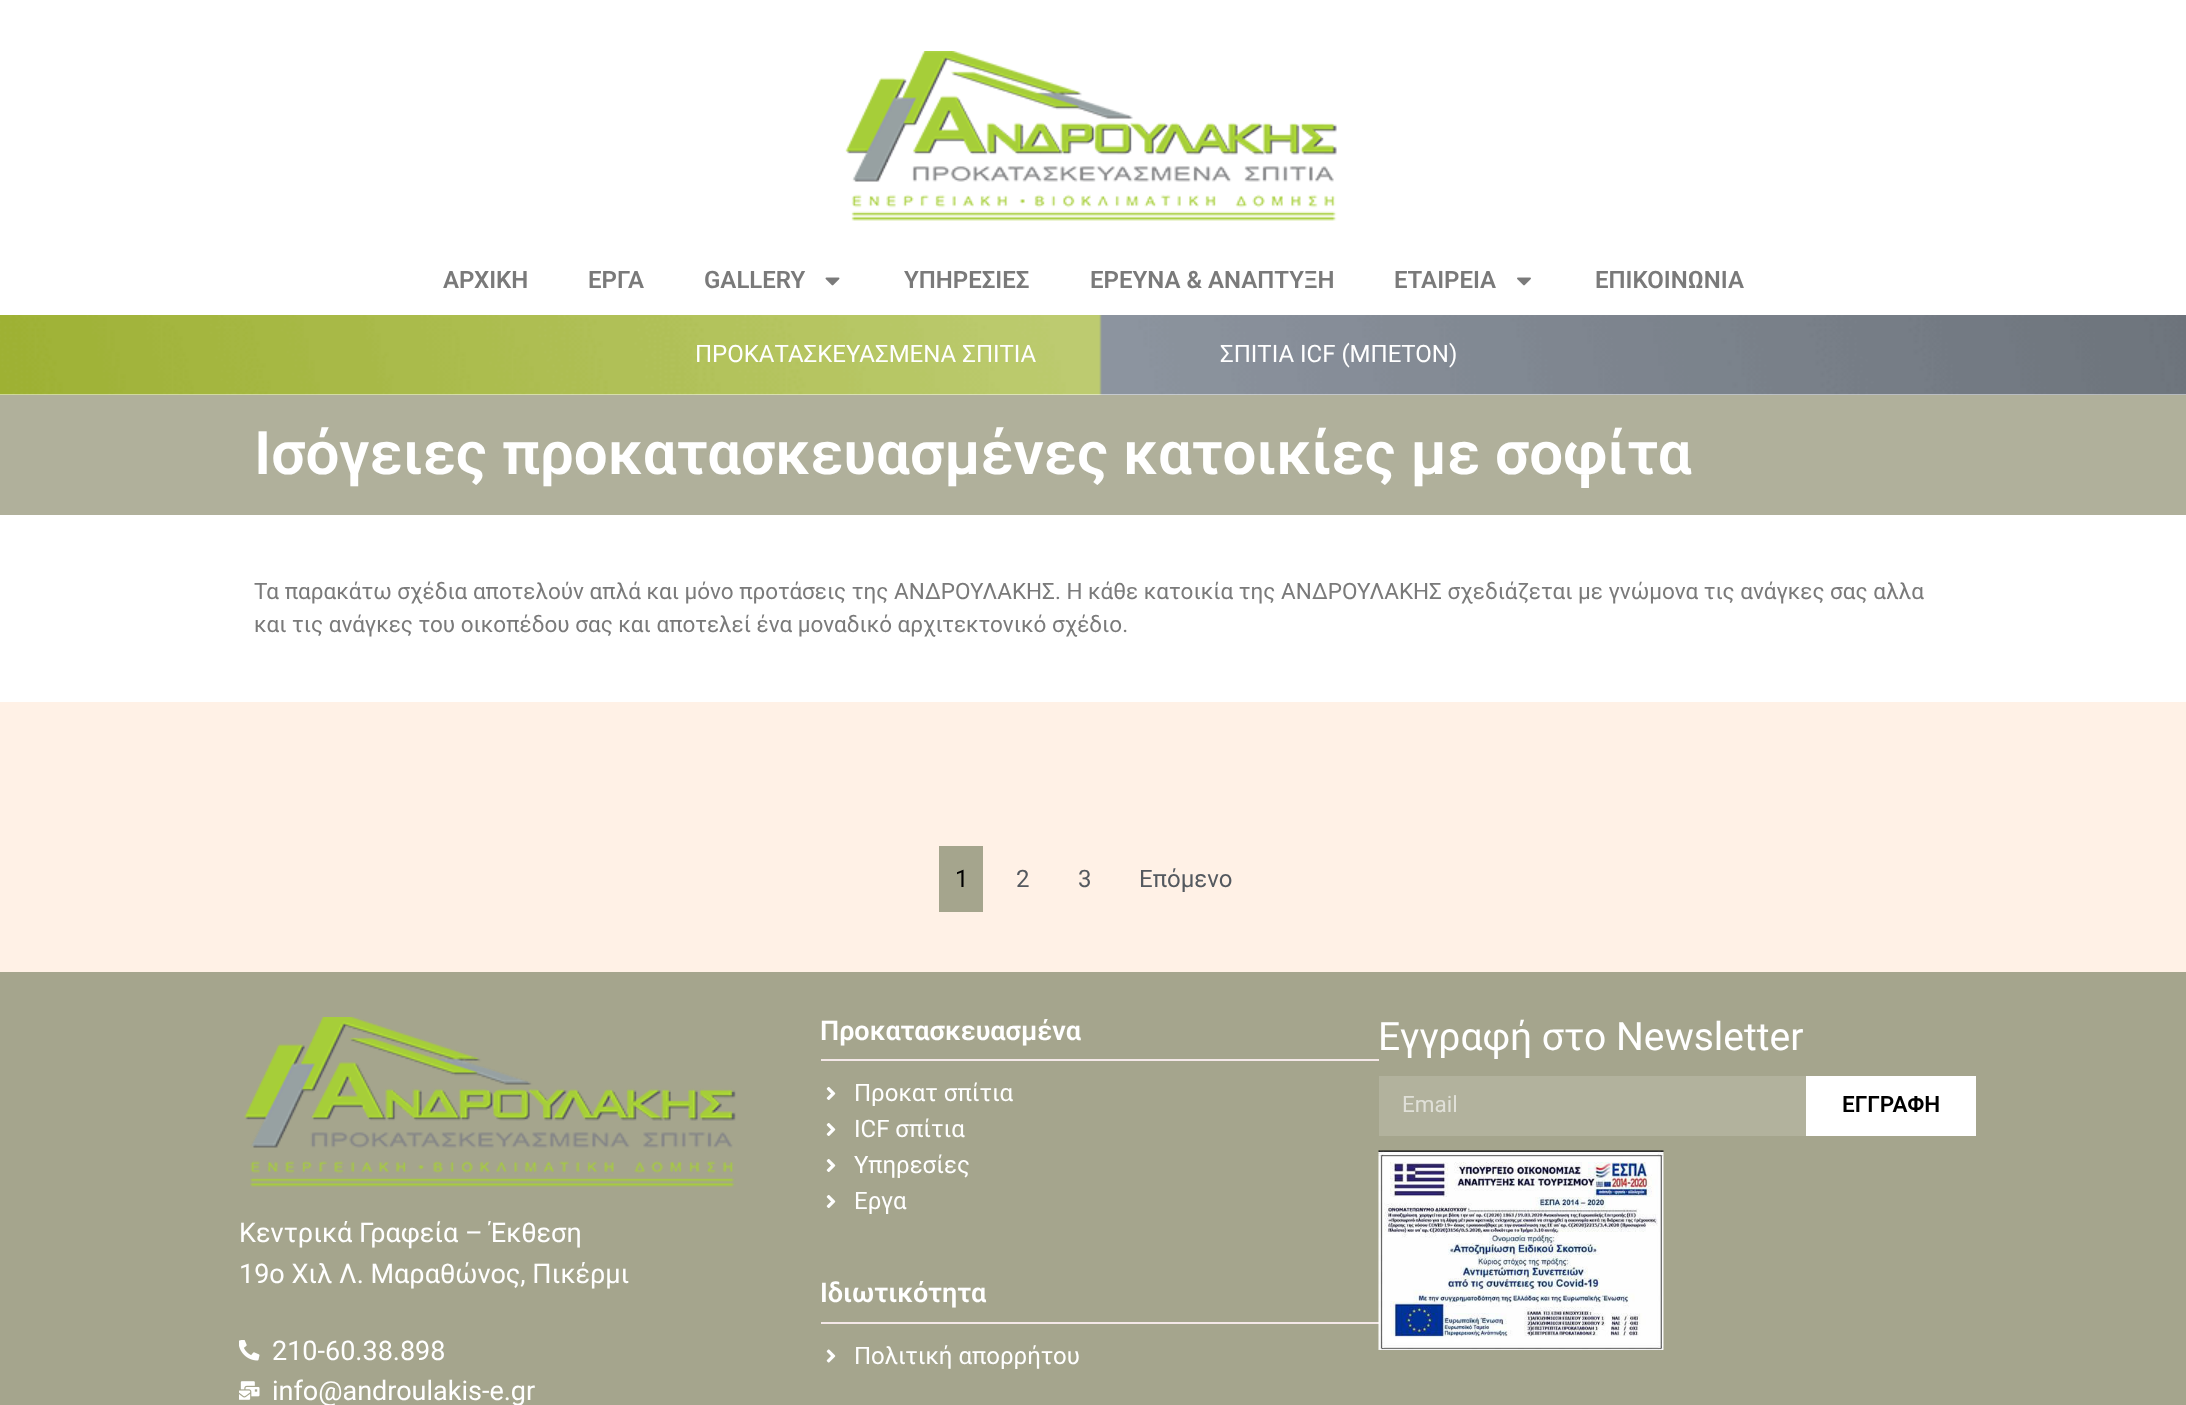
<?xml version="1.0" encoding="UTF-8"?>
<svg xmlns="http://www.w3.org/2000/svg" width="2186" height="1405">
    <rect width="100%" height="100%" fill="#FFFFFF"/>
    <image x="845" y="51" width="492" height="170" href="img_01.png"/>
    <text x="443" y="288" font-family="Roboto" font-size="24" font-weight="600" fill="#7A7A7A">ΑΡΧΙΚΗ</text>
    <text x="588" y="288" font-family="Roboto" font-size="24" font-weight="600" fill="#7A7A7A">ΕΡΓΑ</text>
    <text x="704" y="288" font-family="Roboto" font-size="24" font-weight="600" fill="#7A7A7A">GALLERY</text>
    <image x="825" y="277" width="15" height="9" href="img_02.png"/>
    <text x="904" y="288" font-family="Roboto" font-size="24" font-weight="600" fill="#7A7A7A">ΥΠΗΡΕΣΙΕΣ</text>
    <text x="1090" y="288" font-family="Roboto" font-size="24" font-weight="600" fill="#7A7A7A">ΕΡΕΥΝΑ &amp; ΑΝΑΠΤΥΞΗ</text>
    <text x="1394" y="288" font-family="Roboto" font-size="24" font-weight="600" fill="#7A7A7A">ΕΤΑΙΡΕΙΑ</text>
    <image x="1517" y="277" width="14" height="9" href="img_03.png"/>
    <text x="1595" y="288" font-family="Roboto" font-size="24" font-weight="600" fill="#7A7A7A">ΕΠΙΚΟΙΝΩΝΙΑ</text>
    <image x="0" y="315" width="2186" height="80" href="img_04.png"/>
    <text x="695" y="362" font-family="Roboto" font-size="24" fill="#FFFFFF">ΠΡΟΚΑΤΑΣΚΕΥΑΣΜΕΝΑ ΣΠΙΤΙΑ</text>
    <text x="1220" y="362" font-family="Roboto" font-size="24" fill="#FFFFFF">ΣΠΙΤΙΑ ICF (ΜΠΕΤΟΝ)</text>
    <rect x="0" y="395" width="2186" height="120" fill="#B0B09B"/>
    <text x="254" y="474" font-family="Roboto" font-size="60" font-weight="600" fill="#FFFFFF">Ισόγειες προκατασκευασμένες κατοικίες με σοφίτα</text>
    <text font-family="Roboto" font-size="22.5" fill="#7A7A7A">
        <tspan x="254" y="599">Τα παρακάτω σχέδια αποτελούν απλά και μόνο προτάσεις της ΑΝΔΡΟΥΛΑΚΗΣ. Η κάθε κατοικία της ΑΝΔΡΟΥΛΑΚΗΣ σχεδιάζεται με γνώμονα τις ανάγκες σας αλλα</tspan>
        <tspan x="254" y="632">και τις ανάγκες του οικοπέδου σας και αποτελεί ένα μοναδικό αρχιτεκτονικό σχέδιο.</tspan>
    </text>
    <rect x="0" y="702" width="2186" height="270" fill="#FFF1E6"/>
    <rect x="939" y="846" width="44" height="66" fill="#A5A58D"/>
    <text x="955" y="887" font-family="Roboto" font-size="24" fill="#000000">1</text>
    <text x="1016" y="887" font-family="Roboto" font-size="24" fill="#54595F">2</text>
    <text x="1078" y="887" font-family="Roboto" font-size="24" fill="#54595F">3</text>
    <text x="1139" y="887" font-family="Roboto" font-size="24" fill="#54595F">Επόμενο</text>
    <rect x="0" y="972" width="2186" height="433" fill="#A5A58D"/>
    <text x="820" y="1040" font-family="Roboto" font-size="27" font-weight="600" fill="#FFFFFF">Προκατασκευασμένα</text>
    <rect x="821" y="1059" width="558" height="2" fill="#F4E8E8"/>
    <image x="826" y="1087" width="10" height="13" href="img_05.png"/>
    <text x="854" y="1101" font-family="Roboto" font-size="24" fill="#FFFFFF">Προκατ σπίτια</text>
    <image x="826" y="1123" width="10" height="13" href="img_05.png"/>
    <text x="854" y="1137" font-family="Roboto" font-size="24" fill="#FFFFFF">ICF σπίτια</text>
    <image x="826" y="1159" width="10" height="13" href="img_05.png"/>
    <text x="854" y="1173" font-family="Roboto" font-size="24" fill="#FFFFFF">Υπηρεσίες</text>
    <image x="826" y="1195" width="10" height="13" href="img_05.png"/>
    <text x="854" y="1209" font-family="Roboto" font-size="24" fill="#FFFFFF">Εργα</text>
    <text x="820" y="1302" font-family="Roboto" font-size="27" font-weight="600" fill="#FFFFFF">Ιδιωτικότητα</text>
    <rect x="821" y="1322" width="558" height="2" fill="#F4E8E8"/>
    <image x="826" y="1349" width="10" height="14" href="img_06.png"/>
    <text x="854" y="1364" font-family="Roboto" font-size="24" fill="#FFFFFF">Πολιτική απορρήτου</text>
    <text x="1378" y="1050" font-family="Roboto" font-size="39" fill="#FFFFFF">Εγγραφή στο Newsletter</text>
    <rect x="1379" y="1076" width="427" height="60" fill="#B2B29D"/>
    <text x="1402" y="1112" font-family="Roboto" font-size="22.5" fill="#E0E0D8">Email</text>
    <rect x="1806" y="1076" width="170" height="60" fill="#FFFFFF"/>
    <text x="1842" y="1112" font-family="Roboto" font-size="22.5" font-weight="600" fill="#000000">ΕΓΓΡΑΦΗ</text>
    <image x="1378" y="1150" width="286" height="200" href="img_07.png"/>
    <image x="244" y="1017" width="492" height="170" href="img_08.png"/>
    <text font-family="Roboto" font-size="27" fill="#FFFFFF">
        <tspan x="239" y="1242">Κεντρικά Γραφεία – Έκθεση</tspan>
        <tspan x="239" y="1283">19o Xιλ Λ. Μαραθώνος, Πικέρμι</tspan>
    </text>
    <image x="239" y="1340" width="21" height="21" href="img_09.png"/>
    <text x="272" y="1360" font-family="Roboto" font-size="27" fill="#FFFFFF">210-60.38.898</text>
    <image x="239" y="1381" width="21" height="19" href="img_10.png"/>
    <text x="272" y="1400" font-family="Roboto" font-size="27" fill="#FFFFFF">info@androulakis-e.gr</text>
</svg>
